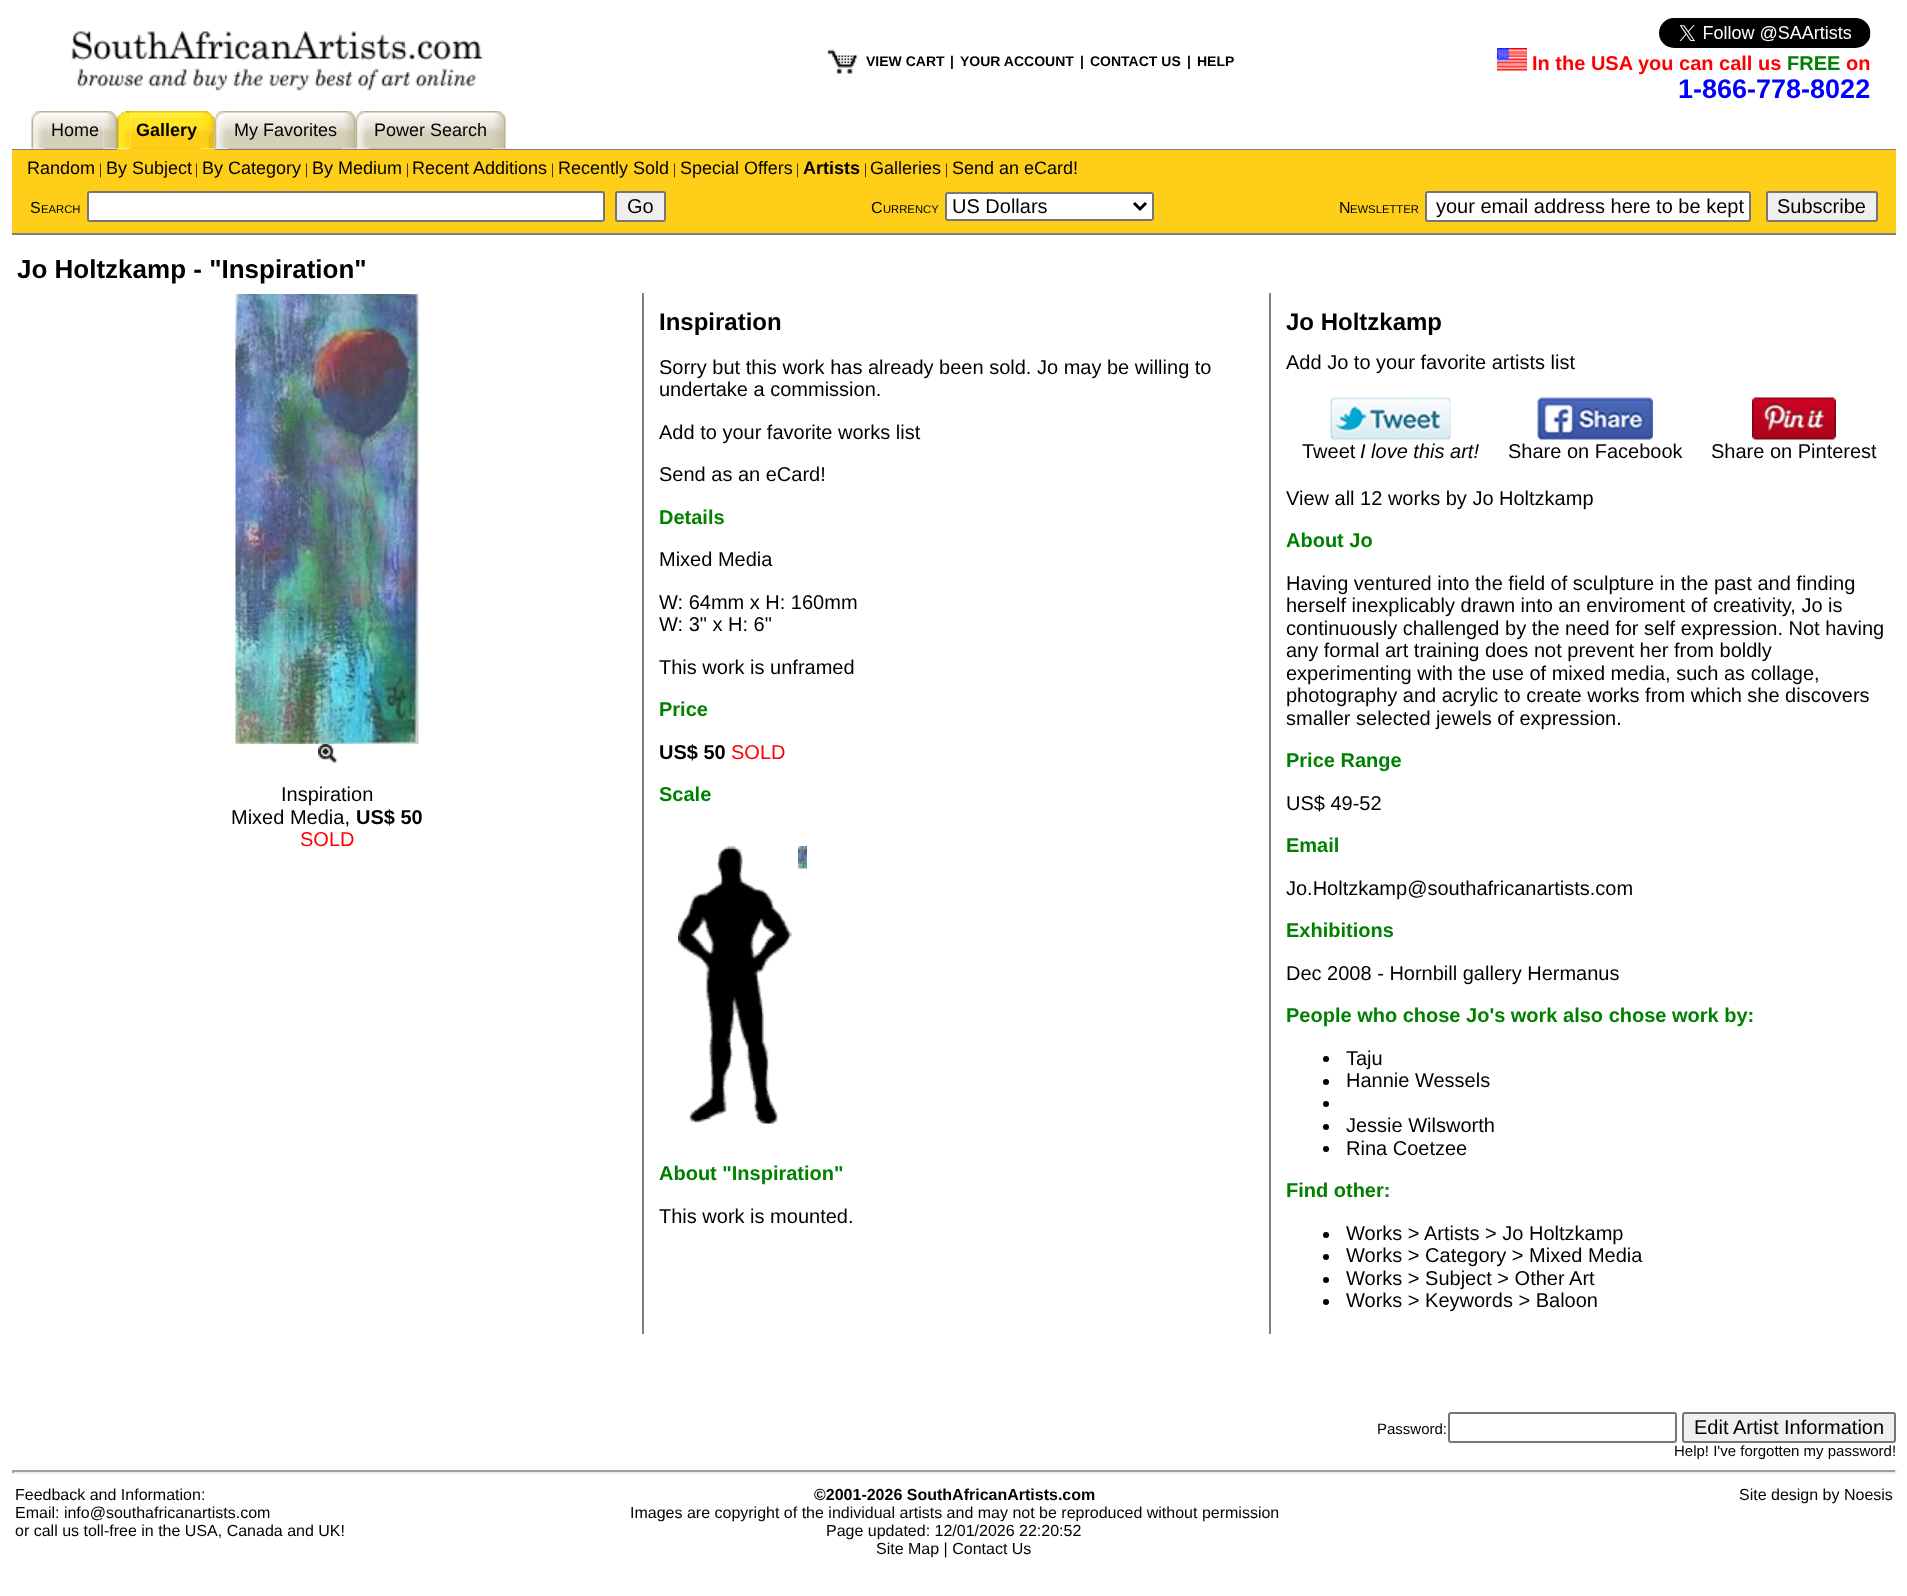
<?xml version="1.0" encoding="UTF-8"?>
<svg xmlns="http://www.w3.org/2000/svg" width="1907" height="1596">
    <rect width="100%" height="100%" fill="#FFFFFF"/>
    <image x="71" y="31" width="413" height="60" href="img_01.png"/>
    <image x="827" y="49" width="30" height="25" href="img_02.png"/>
    <text x="866" y="66" font-family="Liberation Sans" font-size="14" font-weight="700" fill="#000000">VIEW CART</text>
    <text x="950" y="66" font-family="Liberation Sans" font-size="14" font-weight="700" fill="#000000">|</text>
    <text x="960" y="66" font-family="Liberation Sans" font-size="14" font-weight="700" fill="#000000">YOUR ACCOUNT</text>
    <text x="1080" y="66" font-family="Liberation Sans" font-size="14" font-weight="700" fill="#000000">|</text>
    <text x="1090" y="66" font-family="Liberation Sans" font-size="14" font-weight="700" fill="#000000">CONTACT US</text>
    <text x="1187" y="66" font-family="Liberation Sans" font-size="14" font-weight="700" fill="#000000">|</text>
    <text x="1197" y="66" font-family="Liberation Sans" font-size="14" font-weight="700" fill="#000000">HELP</text>
    <image x="1659" y="18" width="212" height="30" href="img_03.png"/>
    <image x="1497" y="48" width="30" height="23" href="img_04.png"/>
    <text x="1532" y="70" font-family="Liberation Sans" font-size="20" font-weight="700" fill="#FF0000">In the USA you can call us</text>
    <text x="1787" y="70" font-family="Liberation Sans" font-size="20" font-weight="700" fill="#008000">FREE</text>
    <text x="1846" y="70" font-family="Liberation Sans" font-size="20" font-weight="700" fill="#FF0000">on</text>
    <text x="1678" y="98" font-family="Liberation Sans" font-size="27" font-weight="700" fill="#0000FF">1-866-778-8022</text>
    <image x="31" y="111" width="14" height="38" href="img_05.png"/>
    <image x="45" y="111" width="59" height="38" href="img_10.png"/>
    <image x="103" y="111" width="14" height="38" href="img_06.png"/>
    <rect x="117" y="149" width="14" height="1" fill="#FFCE19"/>
    <image x="130" y="111" width="71" height="39" href="img_11.png"/>
    <image x="117" y="111" width="14" height="38" href="img_07.png"/>
    <image x="201" y="111" width="14" height="38" href="img_08.png"/>
    <rect x="215" y="149" width="1681" height="1" fill="#808080"/>
    <image x="214" y="111" width="14" height="38" href="img_09.png"/>
    <text x="51" y="136" font-family="Liberation Sans" font-size="18" fill="#000000">Home</text>
    <rect x="131" y="149" width="84" height="1" fill="#FFCE19"/>
    <text x="136" y="136" font-family="Liberation Sans" font-size="18" font-weight="700" fill="#000000">Gallery</text>
    <image x="228" y="111" width="114" height="38" href="img_12.png"/>
    <text x="234" y="136" font-family="Liberation Sans" font-size="18" fill="#000000">My Favorites</text>
    <image x="342" y="111" width="14" height="38" href="img_13.png"/>
    <image x="355" y="111" width="14" height="38" href="img_14.png"/>
    <image x="369" y="111" width="123" height="38" href="img_15.png"/>
    <text x="374" y="136" font-family="Liberation Sans" font-size="18" fill="#000000">Power Search</text>
    <image x="492" y="111" width="14" height="38" href="img_13.png"/>
    <rect x="12" y="149" width="105" height="1" fill="#808080"/>
    <rect x="12" y="150" width="1884" height="83" fill="#FFCE19"/>
    <text x="27" y="174" font-family="Liberation Sans" font-size="18" fill="#000000">Random</text>
    <text x="99" y="174" font-family="Liberation Serif" font-size="15" fill="#000000">|</text>
    <text x="106" y="174" font-family="Liberation Sans" font-size="18" fill="#000000">By Subject</text>
    <text x="195" y="174" font-family="Liberation Serif" font-size="15" fill="#000000">|</text>
    <text x="202" y="174" font-family="Liberation Sans" font-size="18" fill="#000000">By Category</text>
    <text x="305" y="174" font-family="Liberation Serif" font-size="15" fill="#000000">|</text>
    <text x="312" y="174" font-family="Liberation Sans" font-size="18" fill="#000000">By Medium</text>
    <text x="406" y="174" font-family="Liberation Serif" font-size="15" fill="#000000">|</text>
    <text x="412" y="174" font-family="Liberation Sans" font-size="18" fill="#000000">Recent Additions</text>
    <text x="551" y="174" font-family="Liberation Serif" font-size="15" fill="#000000">|</text>
    <text x="558" y="174" font-family="Liberation Sans" font-size="18" fill="#000000">Recently Sold</text>
    <text x="673" y="174" font-family="Liberation Serif" font-size="15" fill="#000000">|</text>
    <text x="680" y="174" font-family="Liberation Sans" font-size="18" fill="#000000">Special Offers</text>
    <text x="796" y="174" font-family="Liberation Serif" font-size="15" fill="#000000">|</text>
    <text x="803" y="174" font-family="Liberation Sans" font-size="18" font-weight="700" fill="#000000">Artists</text>
    <text x="864" y="174" font-family="Liberation Serif" font-size="15" fill="#000000">|</text>
    <text x="870" y="174" font-family="Liberation Sans" font-size="18" fill="#000000">Galleries</text>
    <text x="945" y="174" font-family="Liberation Serif" font-size="15" fill="#000000">|</text>
    <text x="952" y="174" font-family="Liberation Sans" font-size="18" fill="#000000">Send an eCard!</text>
    <rect x="12" y="233" width="1884" height="2" fill="#808080"/>
    <text x="30" y="213" font-family="Liberation Sans" font-size="16" fill="#000000">S</text>
    <text x="41" y="213" font-family="Liberation Sans" font-size="11.25" fill="#000000">EARCH</text>
    <rect x="88" y="192" width="516" height="29" rx="2" fill="#FFFFFF" stroke="#767676" stroke-width="2"/>
    <rect x="616" y="192" width="49" height="29" rx="2" fill="#EFEFEF" stroke="#767676" stroke-width="2"/>
    <text x="627" y="213" font-family="Liberation Sans" font-size="20" fill="#000000">Go</text>
    <text x="871" y="213" font-family="Liberation Sans" font-size="16" fill="#000000">C</text>
    <text x="883" y="213" font-family="Liberation Sans" font-size="11.25" fill="#000000">URRENCY</text>
    <rect x="946" y="193" width="207" height="27" rx="2" fill="#FFFFFF" stroke="#767676" stroke-width="2"/>
    <path d="M 1134 203 L 1140 209 L 1146 203" fill="none" stroke="#000000" stroke-width="3"/>
    <text x="952" y="213" font-family="Liberation Sans" font-size="20" fill="#000000">US Dollars</text>
    <text x="1339" y="213" font-family="Liberation Sans" font-size="16" fill="#000000">N</text>
    <text x="1350" y="213" font-family="Liberation Sans" font-size="11.25" fill="#000000">EWSLETTER</text>
    <rect x="1426" y="192" width="324" height="29" rx="2" fill="#FFFFFF" stroke="#767676" stroke-width="2"/>
    <text x="1436" y="213" font-family="Liberation Sans" font-size="20" fill="#000000">your email address here to be kept</text>
    <rect x="1767" y="192" width="110" height="29" rx="2" fill="#EFEFEF" stroke="#767676" stroke-width="2"/>
    <text x="1777" y="213" font-family="Liberation Sans" font-size="20" fill="#000000">Subscribe</text>
    <text x="17" y="278" font-family="Liberation Sans" font-size="26" font-weight="700" fill="#000000">Jo Holtzkamp - "Inspiration"</text>
    <image x="235" y="294" width="184" height="450" href="img_16.png"/>
    <image x="318" y="744" width="20" height="20" href="img_17.png"/>
    <text x="281" y="801" font-family="Liberation Sans" font-size="20" fill="#000000">Inspiration</text>
    <text x="231" y="824" font-family="Liberation Sans" font-size="20" fill="#000000">Mixed Media,</text>
    <text x="356" y="824" font-family="Liberation Sans" font-size="20" font-weight="700" fill="#000000">US$ 50</text>
    <text x="300" y="846" font-family="Liberation Sans" font-size="20" fill="#FF0000">SOLD</text>
    <rect x="642" y="293" width="2" height="1041" fill="#808080"/>
    <text x="659" y="330" font-family="Liberation Sans" font-size="24" font-weight="700" fill="#000000">Inspiration</text>
    <text font-family="Liberation Sans" font-size="20" fill="#000000">
        <tspan x="659" y="374">Sorry but this work has already been sold. Jo may be willing to</tspan>
        <tspan x="659" y="396">undertake a commission.</tspan>
    </text>
    <text x="659" y="439" font-family="Liberation Sans" font-size="20" fill="#000000">Add to your favorite works list</text>
    <text x="659" y="481" font-family="Liberation Sans" font-size="20" fill="#000000">Send as an eCard!</text>
    <text x="659" y="524" font-family="Liberation Sans" font-size="20" font-weight="700" fill="#008000">Details</text>
    <text x="659" y="566" font-family="Liberation Sans" font-size="20" fill="#000000">Mixed Media</text>
    <text font-family="Liberation Sans" font-size="20" fill="#000000">
        <tspan x="659" y="609">W: 64mm x H: 160mm</tspan>
        <tspan x="659" y="631">W: 3" x H: 6"</tspan>
    </text>
    <text x="659" y="674" font-family="Liberation Sans" font-size="20" fill="#000000">This work is unframed</text>
    <text x="659" y="716" font-family="Liberation Sans" font-size="20" font-weight="700" fill="#008000">Price</text>
    <text x="659" y="759" font-family="Liberation Sans" font-size="20" font-weight="700" fill="#000000">US$ 50</text>
    <text x="731" y="759" font-family="Liberation Sans" font-size="20" fill="#FF0000">SOLD</text>
    <text x="659" y="801" font-family="Liberation Sans" font-size="20" font-weight="700" fill="#008000">Scale</text>
    <image x="678" y="846" width="114" height="278" href="img_18.png"/>
    <image x="798" y="846" width="9" height="23" href="img_19.png"/>
    <text x="659" y="1180" font-family="Liberation Sans" font-size="20" font-weight="700" fill="#008000">About "Inspiration"</text>
    <text x="659" y="1223" font-family="Liberation Sans" font-size="20" fill="#000000">This work is mounted.</text>
    <rect x="1269" y="293" width="2" height="1041" fill="#808080"/>
    <text x="1286" y="330" font-family="Liberation Sans" font-size="24" font-weight="700" fill="#000000">Jo Holtzkamp</text>
    <text x="1286" y="369" font-family="Liberation Sans" font-size="20" fill="#000000">Add Jo to your favorite artists list</text>
    <image x="1330" y="397" width="121" height="43" href="img_20.png"/>
    <text x="1302" y="458" font-family="Liberation Sans" font-size="20" fill="#000000">Tweet</text>
    <text x="1360" y="458" font-family="Liberation Sans" font-size="20" font-style="italic" fill="#000000">I love this art!</text>
    <image x="1537" y="397" width="116" height="43" href="img_21.png"/>
    <text x="1508" y="458" font-family="Liberation Sans" font-size="20" fill="#000000">Share on Facebook</text>
    <image x="1752" y="397" width="84" height="43" href="img_22.png"/>
    <text x="1711" y="458" font-family="Liberation Sans" font-size="20" fill="#000000">Share on Pinterest</text>
    <text x="1286" y="505" font-family="Liberation Sans" font-size="20" fill="#000000">View all 12 works by Jo Holtzkamp</text>
    <text x="1286" y="547" font-family="Liberation Sans" font-size="20" font-weight="700" fill="#008000">About Jo</text>
    <text font-family="Liberation Sans" font-size="20" fill="#000000">
        <tspan x="1286" y="590">Having ventured into the field of sculpture in the past and finding</tspan>
        <tspan x="1286" y="612">herself inexplicably drawn into an enviroment of creativity, Jo is</tspan>
        <tspan x="1286" y="635">continuously challenged by the need for self expression. Not having</tspan>
        <tspan x="1286" y="657">any formal art training does not prevent her from boldly</tspan>
        <tspan x="1286" y="680">experimenting with the use of mixed media, such as collage,</tspan>
        <tspan x="1286" y="702">photography and acrylic to create works from which she discovers</tspan>
        <tspan x="1286" y="725">smaller selected jewels of expression.</tspan>
    </text>
    <text x="1286" y="767" font-family="Liberation Sans" font-size="20" font-weight="700" fill="#008000">Price Range</text>
    <text x="1286" y="810" font-family="Liberation Sans" font-size="20" fill="#000000">US$ 49-52</text>
    <text x="1286" y="852" font-family="Liberation Sans" font-size="20" font-weight="700" fill="#008000">Email</text>
    <text x="1286" y="895" font-family="Liberation Sans" font-size="20" fill="#000000">Jo.Holtzkamp@southafricanartists.com</text>
    <text x="1286" y="937" font-family="Liberation Sans" font-size="20" font-weight="700" fill="#008000">Exhibitions</text>
    <text x="1286" y="980" font-family="Liberation Sans" font-size="20" fill="#000000">Dec 2008 - Hornbill gallery Hermanus</text>
    <text x="1286" y="1022" font-family="Liberation Sans" font-size="20" font-weight="700" fill="#008000">People who chose Jo's work also chose work by:</text>
    <circle cx="1326" cy="1059" r="3" fill="#000000"/>
    <text x="1346" y="1065" font-family="Liberation Sans" font-size="20" fill="#000000">Taju</text>
    <circle cx="1326" cy="1082" r="3" fill="#000000"/>
    <text x="1346" y="1087" font-family="Liberation Sans" font-size="20" fill="#000000">Hannie Wessels</text>
    <circle cx="1326" cy="1104" r="3" fill="#000000"/>
    <circle cx="1326" cy="1127" r="3" fill="#000000"/>
    <text x="1346" y="1132" font-family="Liberation Sans" font-size="20" fill="#000000">Jessie Wilsworth</text>
    <circle cx="1326" cy="1149" r="3" fill="#000000"/>
    <text x="1346" y="1155" font-family="Liberation Sans" font-size="20" fill="#000000">Rina Coetzee</text>
    <text x="1286" y="1197" font-family="Liberation Sans" font-size="20" font-weight="700" fill="#008000">Find other:</text>
    <circle cx="1326" cy="1235" r="3" fill="#000000"/>
    <text x="1346" y="1240" font-family="Liberation Sans" font-size="20" fill="#000000">Works &gt; Artists &gt; Jo Holtzkamp</text>
    <circle cx="1326" cy="1257" r="3" fill="#000000"/>
    <text x="1346" y="1262" font-family="Liberation Sans" font-size="20" fill="#000000">Works &gt; Category &gt; Mixed Media</text>
    <circle cx="1326" cy="1280" r="3" fill="#000000"/>
    <text x="1346" y="1285" font-family="Liberation Sans" font-size="20" fill="#000000">Works &gt; Subject &gt; Other Art</text>
    <circle cx="1326" cy="1302" r="3" fill="#000000"/>
    <text x="1346" y="1307" font-family="Liberation Sans" font-size="20" fill="#000000">Works &gt; Keywords &gt; Baloon</text>
    <text x="1377" y="1434" font-family="Liberation Sans" font-size="15" fill="#000000">Password:</text>
    <rect x="1449" y="1413" width="227" height="29" rx="2" fill="none" stroke="#767676" stroke-width="2"/>
    <rect x="1683" y="1413" width="212" height="29" rx="2" fill="#EFEFEF" stroke="#767676" stroke-width="2"/>
    <text x="1694" y="1434" font-family="Liberation Sans" font-size="20" fill="#000000">Edit Artist Information</text>
    <text x="1674" y="1456" font-family="Liberation Sans" font-size="15" fill="#000000">Help! I've forgotten my password!</text>
    <rect x="12" y="1470" width="1884" height="2" fill="#9F9F9F"/>
    <rect x="1895" y="1470" width="2" height="3" fill="#EEEEEE"/>
    <rect x="12" y="1472" width="1884" height="2" fill="#EEEEEE"/>
    <rect x="12" y="1470" width="2" height="3" fill="#9F9F9F"/>
    <text font-family="Liberation Sans" font-size="16" fill="#000000">
        <tspan x="15" y="1500">Feedback and Information:</tspan>
        <tspan x="15" y="1518">Email: info@southafricanartists.com</tspan>
        <tspan x="15" y="1536">or call us toll-free in the USA, Canada and UK!</tspan>
    </text>
    <text x="814" y="1500" font-family="Liberation Sans" font-size="16" font-weight="700" fill="#000000">©2001-2026 SouthAfricanArtists.com</text>
    <text x="630" y="1518" font-family="Liberation Sans" font-size="16" fill="#000000">Images are copyright of the individual artists and may not be reproduced without permission</text>
    <text x="826" y="1536" font-family="Liberation Sans" font-size="16" fill="#000000">Page updated: 12/01/2026 22:20:52</text>
    <text x="876" y="1554" font-family="Liberation Sans" font-size="16" fill="#000000">Site Map | Contact Us</text>
    <text x="1739" y="1500" font-family="Liberation Sans" font-size="16" fill="#000000">Site design by Noesis</text>
</svg>
